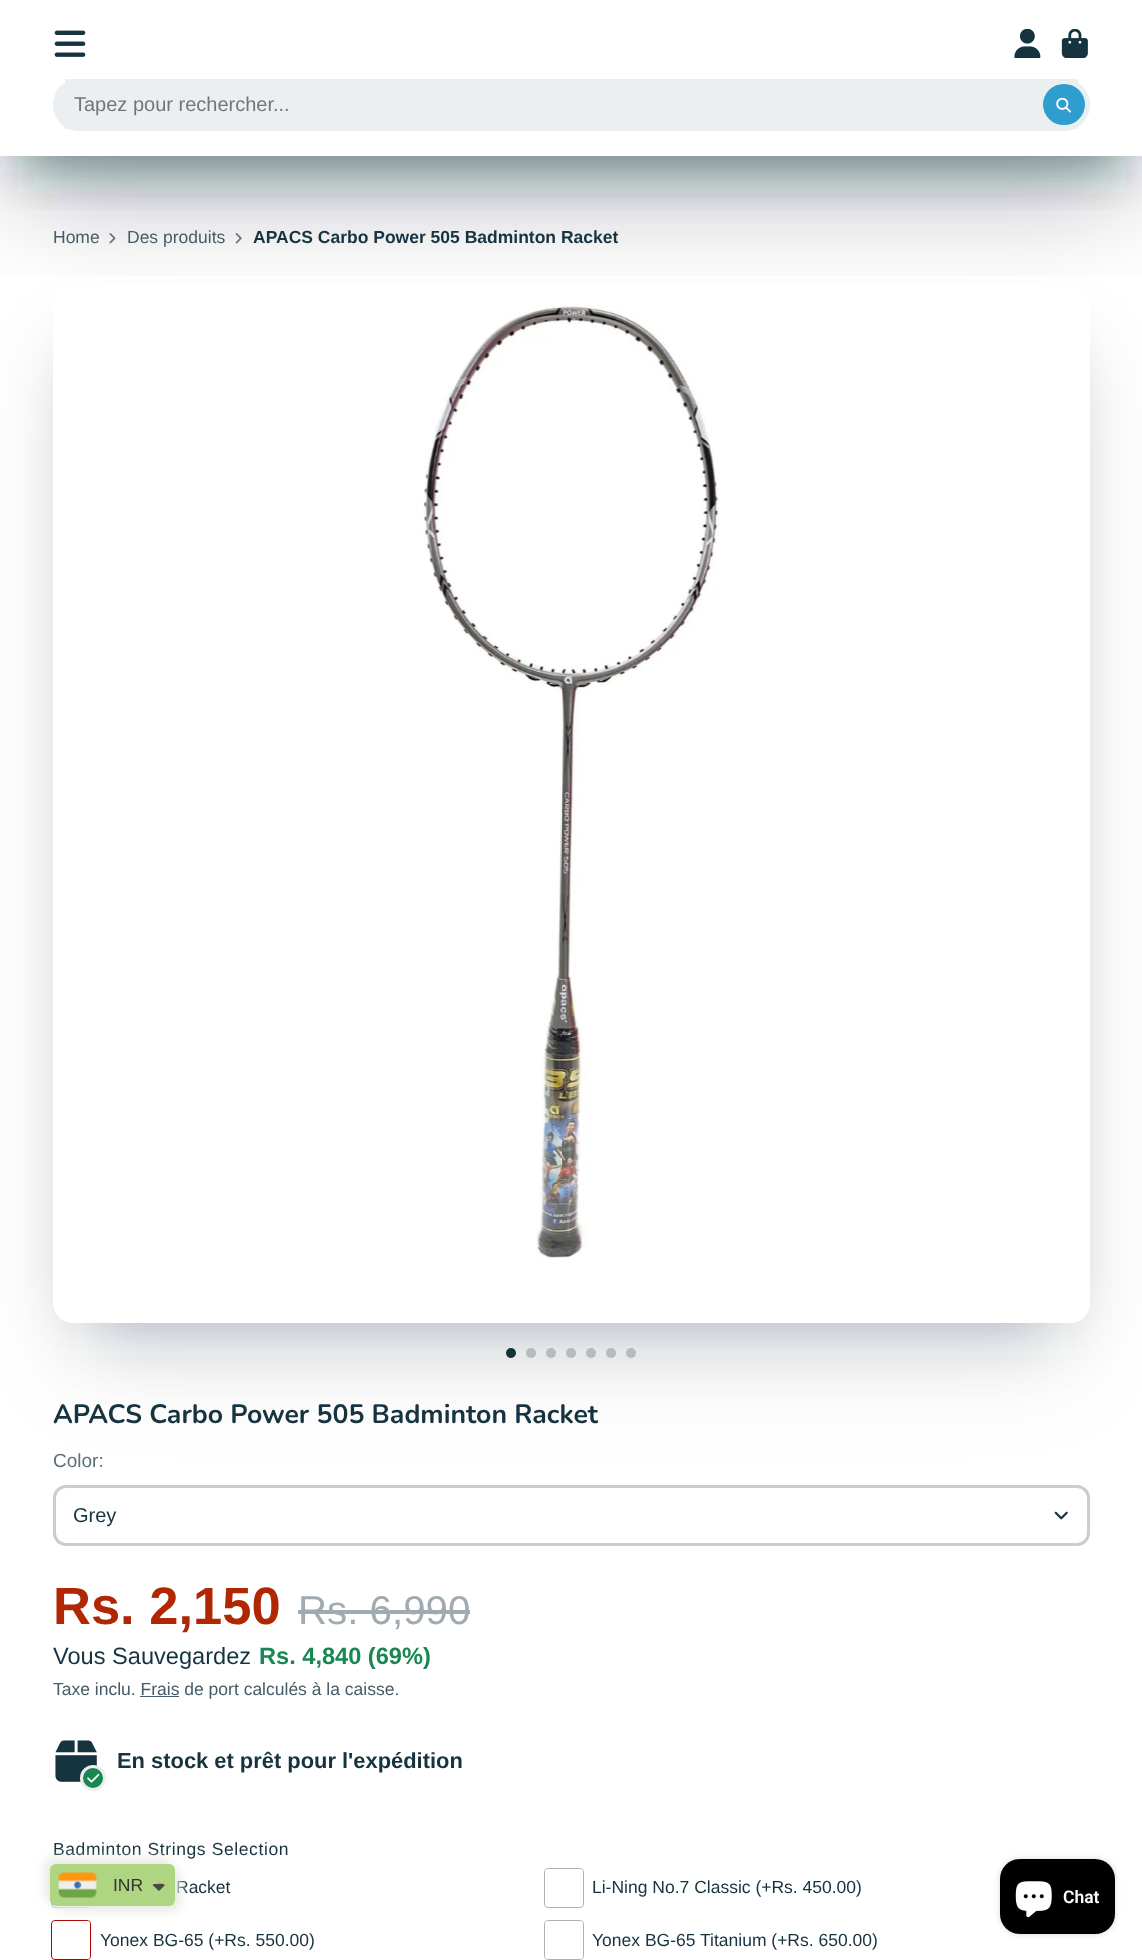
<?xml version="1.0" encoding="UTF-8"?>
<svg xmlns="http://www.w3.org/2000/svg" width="1142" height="1960">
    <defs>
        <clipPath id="clip1"><rect x="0" y="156" width="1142" height="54"/></clipPath>
        <filter id="blur1" x="-50%" y="-200%" width="200%" height="500%"><feGaussianBlur stdDeviation="24"/></filter>
        <filter id="blur2" x="-50%" y="-200%" width="200%" height="500%"><feGaussianBlur stdDeviation="33"/></filter>
        <filter id="blur3" x="-50%" y="-200%" width="200%" height="500%"><feGaussianBlur stdDeviation="54.5"/></filter>
        <clipPath id="clip2"><rect x="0" y="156" width="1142" height="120"/></clipPath>
        <filter id="blur4" x="-50%" y="-200%" width="200%" height="500%"><feGaussianBlur stdDeviation="5.5"/></filter>
        <filter id="blur5" x="-50%" y="-200%" width="200%" height="500%"><feGaussianBlur stdDeviation="3"/></filter>
    </defs>
    <rect width="100%" height="100%" fill="#FFFFFF"/>
    <image x="109" y="233" width="7" height="11" href="img_05.png"/>
    <image x="235" y="233" width="7" height="11" href="img_06.png"/>
    <g clip-path="url(#clip1)">
        <rect x="18" y="50" width="1107" height="121" fill="#0F242D" fill-opacity="0.4" filter="url(#blur1)"/>
    </g>
    <circle cx="511" cy="1353" r="5" fill="#163340"/>
    <circle cx="531" cy="1353" r="5" fill="#CCCCCC"/>
    <circle cx="551" cy="1353" r="5" fill="#CCCCCC"/>
    <circle cx="571" cy="1353" r="5" fill="#CCCCCC"/>
    <circle cx="591" cy="1353" r="5" fill="#CCCCCC"/>
    <circle cx="611" cy="1353" r="5" fill="#CCCCCC"/>
    <circle cx="631" cy="1353" r="5" fill="#CCCCCC"/>
    <rect x="85" y="351" width="973" height="972" fill="#0F242D" fill-opacity="0.3" filter="url(#blur2)"/>
    <rect x="54.5" y="1486.5" width="1034" height="58" rx="11.5" fill="none" stroke="#CCCCCC" stroke-width="3"/>
    <image x="1054" y="1511" width="14" height="9" href="img_08.png"/>
    <rect x="75" y="361" width="994" height="994" fill="#0F242D" fill-opacity="0.1" filter="url(#blur3)"/>
    <rect x="53" y="285" width="1037" height="1038" rx="20" fill="#FFFFFF"/>
    <image x="423" y="306" width="296" height="954" href="img_07.png"/>
    <g clip-path="url(#clip2)">
        <rect x="18" y="73" width="1107" height="121" fill="#0F242D" fill-opacity="0.3" filter="url(#blur3)"/>
    </g>
    <image x="54" y="30" width="32" height="27" href="img_01.png"/>
    <image x="1014" y="29" width="27" height="29" href="img_02.png"/>
    <image x="1061" y="29" width="27" height="29" href="img_03.png"/>
    <rect x="53" y="79" width="1037" height="50" rx="25" fill="#EBEFF1"/>
    <rect x="65" y="79" width="1013" height="50" fill="#EBEFF1"/>
    <rect x="53" y="79" width="1037" height="52" rx="26" fill="#EBEFF1"/>
    <text x="74" y="111" font-family="Liberation Sans" font-size="20" fill="#757575">Tapez pour rechercher...</text>
    <rect x="1043" y="84" width="42" height="41" rx="20.5" fill="#2F9ECF"/>
    <image x="1056" y="98" width="15" height="15" href="img_04.png"/>
    <text x="53" y="243" font-family="Liberation Sans" font-size="17.5" fill="#455C66">Home</text>
    <text x="127" y="243" font-family="Liberation Sans" font-size="17.5" fill="#455C66">Des produits</text>
    <text x="253" y="243" font-family="Liberation Sans" font-size="17.5" font-weight="700" fill="#163340">APACS Carbo Power 505 Badminton Racket</text>
    <text x="53" y="1423" font-family="Nunito" font-size="26.6" font-weight="700" fill="#163340">APACS Carbo Power 505 Badminton Racket</text>
    <text x="53" y="1467" font-family="Liberation Sans" font-size="19" fill="#5C7079">Color:</text>
    <text x="73" y="1522" font-family="Liberation Sans" font-size="20" fill="#163340">Grey</text>
    <text x="53" y="1624" font-family="Liberation Sans" font-size="52.5" font-weight="700" fill="#B12704">Rs. 2,150</text>
    <text x="298" y="1624" font-family="Liberation Sans" font-size="40.25" fill="#A0ABB1">Rs. 6,990</text>
    <rect x="298" y="1610" width="172" height="4" fill="#A0ABB1"/>
    <text x="53" y="1664" font-family="Liberation Sans" font-size="23.6" fill="#163340">Vous Sauvegardez</text>
    <text x="259" y="1664" font-family="Liberation Sans" font-size="23.6" font-weight="700" fill="#198754">Rs. 4,840 (69%)</text>
    <text x="53" y="1695" font-family="Liberation Sans" font-size="17.5" fill="#455C66">Taxe inclu. Frais de port calculés à la caisse.</text>
    <rect x="140" y="1696" width="39" height="1" fill="#455C66"/>
    <image x="55" y="1740" width="42" height="42" href="img_09.png"/>
    <circle cx="93" cy="1778" r="11.5" fill="#198754" stroke="#EDEDED" stroke-width="3"/>
    <image x="87" y="1773" width="13" height="10" href="img_10.png"/>
    <text x="117" y="1768" font-family="Liberation Sans" font-size="21.9" font-weight="700" fill="#163340">En stock et prêt pour l'expédition</text>
    <text x="53" y="1855" font-family="Liberation Sans" font-size="17.5" letter-spacing="0.6" fill="#163340">Badminton Strings Selection</text>
    <rect x="51.5" y="1868.5" width="39" height="39" rx="3.5" fill="none" stroke="#B2B2B2"/>
    <rect x="53.5" y="1869.5" width="36" height="36" rx="2" fill="none" stroke="#FFFFFF"/>
    <text x="176" y="1893" font-family="Liberation Sans" font-size="17.5" fill="#163340">Racket</text>
    <rect x="544.5" y="1868.5" width="39" height="39" rx="3.5" fill="none" stroke="#B2B2B2"/>
    <rect x="545.5" y="1869.5" width="37" height="36" rx="2" fill="none" stroke="#FFFFFF"/>
    <text x="592" y="1893" font-family="Liberation Sans" font-size="17.5" fill="#163340">Li-Ning No.7 Classic (+Rs. 450.00)</text>
    <rect x="51.5" y="1920.5" width="39" height="39" rx="3.5" fill="none" stroke="#AD0000"/>
    <rect x="53.5" y="1921.5" width="36" height="37" rx="2" fill="none" stroke="#FFFFFF"/>
    <text x="100" y="1946" font-family="Liberation Sans" font-size="17.5" fill="#163340">Yonex BG-65 (+Rs. 550.00)</text>
    <rect x="544.5" y="1920.5" width="39" height="39" rx="3.5" fill="none" stroke="#B2B2B2"/>
    <rect x="545.5" y="1921.5" width="37" height="37" rx="2" fill="none" stroke="#FFFFFF"/>
    <text x="592" y="1946" font-family="Liberation Sans" font-size="17.5" fill="#163340">Yonex BG-65 Titanium (+Rs. 650.00)</text>
    <rect x="45" y="1859" width="125" height="42" rx="6" fill="#E8E8E2" filter="url(#blur4)"/>
    <rect x="55" y="1869" width="125" height="42" rx="6" fill="#E8E8E2" filter="url(#blur4)"/>
    <rect x="50" y="1864" width="125" height="42" rx="6" fill="#AED581"/>
    <image x="58" y="1872" width="39" height="26" href="img_11.png"/>
    <text x="113" y="1891" font-family="Liberation Sans" font-size="17.5" fill="#333333">INR</text>
    <path d="M 155 1884 C 157.5 1884 163 1883 165 1885 L 159 1891 L 152.5 1885 C 153 1884.5 154 1884 155 1884 Z" fill="#474942"/>
    <rect x="1000" y="1859" width="115" height="75" rx="20" fill="#000000" fill-opacity="0.15" filter="url(#blur5)"/>
    <rect x="1000" y="1859" width="115" height="75" rx="20" fill="#000000"/>
    <image x="1015" y="1881" width="37" height="37" href="img_12.png"/>
    <text x="1063" y="1903" font-family="Roboto" font-size="17.5" font-weight="600" fill="#FFFFFF">Chat</text>
</svg>
